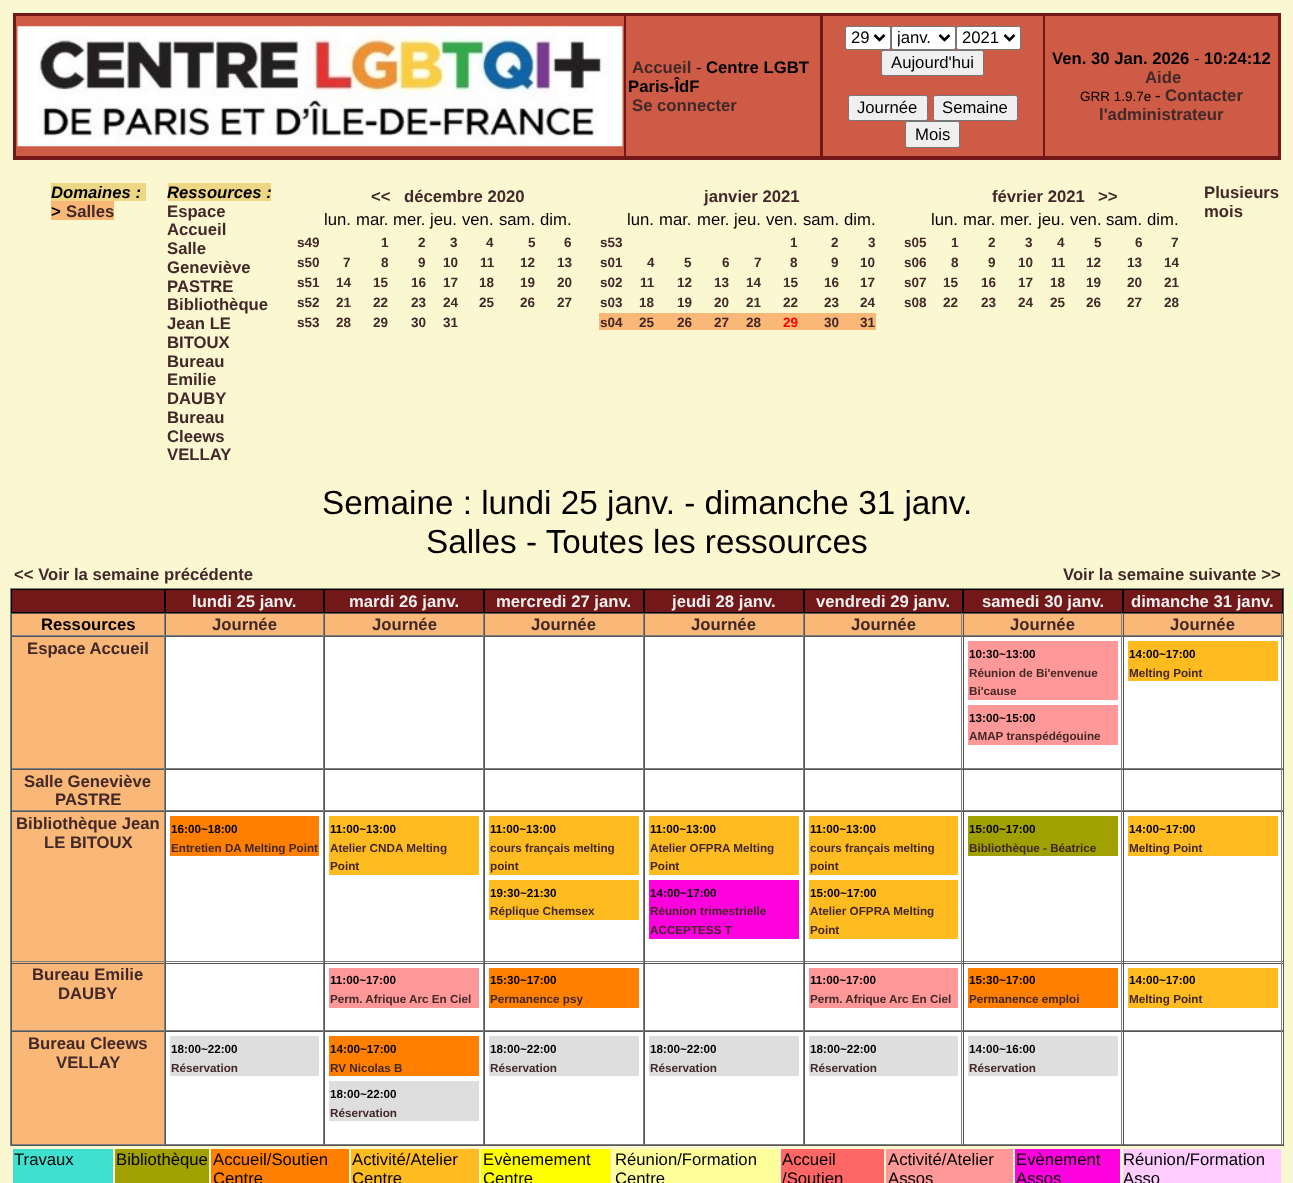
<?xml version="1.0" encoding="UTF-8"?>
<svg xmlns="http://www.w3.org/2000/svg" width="1293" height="1183">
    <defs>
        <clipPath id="clip1"><rect x="898" y="28" width="37" height="21"/></clipPath>
    </defs>
    <rect width="100%" height="100%" fill="#FBF7D1"/>
    <rect x="13" y="13" width="1268" height="147" fill="#721818"/>
    <rect x="16" y="16" width="608" height="140" fill="#CD5B45"/>
    <image x="17" y="26" width="606" height="121" href="img_01.png"/>
    <rect x="626" y="16" width="194" height="140" fill="#CD5B45"/>
    <text x="632" y="73" font-family="Liberation Sans" font-size="16.7" font-weight="700" fill="#422828">Accueil</text>
    <text x="696" y="73" font-family="Liberation Sans" font-size="16.7" fill="#000000">-</text>
    <text x="706" y="73" font-family="Liberation Sans" font-size="16.7" font-weight="700" fill="#000000">Centre LGBT</text>
    <text x="628" y="92" font-family="Liberation Sans" font-size="16.7" font-weight="700" fill="#000000">Paris-ÎdF</text>
    <text x="632" y="111" font-family="Liberation Sans" font-size="16.7" font-weight="700" fill="#422828">Se connecter</text>
    <rect x="823" y="16" width="220" height="140" fill="#CD5B45"/>
    <rect x="845.5" y="26.5" width="45" height="23" rx="2" fill="#FFFFFF" stroke="#767676"/>
    <path d="M 874.5 35 L 879.5 40 L 884.5 35" fill="none" stroke="#000000" stroke-width="2.5"/>
    <text x="851" y="43" font-family="Liberation Sans" font-size="16.7" fill="#000000">29</text>
    <rect x="891.5" y="26.5" width="64" height="23" rx="2" fill="#FFFFFF" stroke="#767676"/>
    <path d="M 939.5 35 L 944.5 40 L 949.5 35" fill="none" stroke="#000000" stroke-width="2.5"/>
    <g clip-path="url(#clip1)">
        <text x="897" y="43" font-family="Liberation Sans" font-size="16.7" fill="#000000">janv.</text>
    </g>
    <rect x="956.5" y="26.5" width="64" height="23" rx="2" fill="#FFFFFF" stroke="#767676"/>
    <path d="M 1004.5 35 L 1009.5 40 L 1014.5 35" fill="none" stroke="#000000" stroke-width="2.5"/>
    <text x="962" y="43" font-family="Liberation Sans" font-size="16.7" fill="#000000">2021</text>
    <rect x="881.5" y="50.5" width="102" height="25" rx="2" fill="#EFEFEF" stroke="#767676"/>
    <text x="891" y="68" font-family="Liberation Sans" font-size="16.7" fill="#000000">Aujourd'hui</text>
    <rect x="848.5" y="95.5" width="79" height="25" rx="2" fill="#EFEFEF" stroke="#767676"/>
    <text x="857" y="113" font-family="Liberation Sans" font-size="16.7" fill="#000000">Journée</text>
    <rect x="933.5" y="95.5" width="84" height="25" rx="2" fill="#EFEFEF" stroke="#767676"/>
    <text x="942" y="113" font-family="Liberation Sans" font-size="16.7" fill="#000000">Semaine</text>
    <rect x="905.5" y="121.5" width="54" height="26" rx="2" fill="#EFEFEF" stroke="#767676"/>
    <text x="915" y="140" font-family="Liberation Sans" font-size="16.7" fill="#000000">Mois</text>
    <rect x="1045" y="16" width="233" height="140" fill="#CD5B45"/>
    <text x="1052" y="64" font-family="Liberation Sans" font-size="16.7" font-weight="700" fill="#000000">Ven. 30 Jan. 2026</text>
    <text x="1194" y="64" font-family="Liberation Sans" font-size="16.7" fill="#000000">-</text>
    <text x="1204" y="64" font-family="Liberation Sans" font-size="16.7" font-weight="700" fill="#000000">10:24:12</text>
    <text x="1145" y="83" font-family="Liberation Sans" font-size="16.7" font-weight="700" fill="#422828">Aide</text>
    <text x="1080" y="101" font-family="Liberation Sans" font-size="13.5" fill="#000000">GRR 1.9.7e</text>
    <text x="1155" y="101" font-family="Liberation Sans" font-size="16.7" fill="#000000">-</text>
    <text x="1165" y="101" font-family="Liberation Sans" font-size="16.7" font-weight="700" fill="#422828">Contacter</text>
    <text x="1099" y="120" font-family="Liberation Sans" font-size="16.7" font-weight="700" fill="#422828">l'administrateur</text>
    <rect x="51" y="183" width="95" height="18" fill="#EDD684"/>
    <text x="51" y="198" font-family="Liberation Sans" font-size="16.7" font-weight="700" font-style="italic" fill="#000000">Domaines :</text>
    <rect x="51" y="201" width="63" height="19" fill="#F9B877"/>
    <text x="51" y="217" font-family="Liberation Sans" font-size="16.7" font-weight="700" fill="#000000">&gt;</text>
    <text x="66" y="217" font-family="Liberation Sans" font-size="16.7" font-weight="700" fill="#422828">Salles</text>
    <rect x="168" y="183" width="103" height="18" fill="#EDD684"/>
    <text x="167" y="198" font-family="Liberation Sans" font-size="16.7" font-weight="700" font-style="italic" fill="#000000">Ressources :</text>
    <text font-family="Liberation Sans" font-size="16.7" font-weight="700" fill="#422828">
        <tspan x="167" y="217">Espace</tspan>
        <tspan x="167" y="235">Accueil</tspan>
        <tspan x="167" y="254">Salle</tspan>
        <tspan x="167" y="273">Geneviève</tspan>
        <tspan x="167" y="292">PASTRE</tspan>
        <tspan x="167" y="310">Bibliothèque</tspan>
        <tspan x="167" y="329">Jean LE</tspan>
        <tspan x="167" y="348">BITOUX</tspan>
        <tspan x="167" y="367">Bureau</tspan>
        <tspan x="167" y="385">Emilie</tspan>
        <tspan x="167" y="404">DAUBY</tspan>
        <tspan x="167" y="423">Bureau</tspan>
        <tspan x="167" y="442">Cleews</tspan>
        <tspan x="167" y="460">VELLAY</tspan>
    </text>
    <text x="371" y="202" font-family="Liberation Sans" font-size="16.7" font-weight="700" fill="#422828">&lt;&lt;</text>
    <text x="404" y="202" font-family="Liberation Sans" font-size="16.7" font-weight="700" fill="#422828">décembre 2020</text>
    <text x="324" y="225" font-family="Liberation Sans" font-size="16.7" fill="#000000">lun.</text>
    <text x="356" y="225" font-family="Liberation Sans" font-size="16.7" fill="#000000">mar.</text>
    <text x="393" y="225" font-family="Liberation Sans" font-size="16.7" fill="#000000">mer.</text>
    <text x="430" y="225" font-family="Liberation Sans" font-size="16.7" fill="#000000">jeu.</text>
    <text x="462" y="225" font-family="Liberation Sans" font-size="16.7" fill="#000000">ven.</text>
    <text x="499" y="225" font-family="Liberation Sans" font-size="16.7" fill="#000000">sam.</text>
    <text x="540" y="225" font-family="Liberation Sans" font-size="16.7" fill="#000000">dim.</text>
    <text x="297" y="247" font-family="Liberation Sans" font-size="13.5" font-weight="700" fill="#422828">s49</text>
    <text x="381" y="247" font-family="Liberation Sans" font-size="13.5" font-weight="700" fill="#422828">1</text>
    <text x="418" y="247" font-family="Liberation Sans" font-size="13.5" font-weight="700" fill="#422828">2</text>
    <text x="450" y="247" font-family="Liberation Sans" font-size="13.5" font-weight="700" fill="#422828">3</text>
    <text x="486" y="247" font-family="Liberation Sans" font-size="13.5" font-weight="700" fill="#422828">4</text>
    <text x="528" y="247" font-family="Liberation Sans" font-size="13.5" font-weight="700" fill="#422828">5</text>
    <text x="564" y="247" font-family="Liberation Sans" font-size="13.5" font-weight="700" fill="#422828">6</text>
    <text x="297" y="267" font-family="Liberation Sans" font-size="13.5" font-weight="700" fill="#422828">s50</text>
    <text x="343" y="267" font-family="Liberation Sans" font-size="13.5" font-weight="700" fill="#422828">7</text>
    <text x="381" y="267" font-family="Liberation Sans" font-size="13.5" font-weight="700" fill="#422828">8</text>
    <text x="418" y="267" font-family="Liberation Sans" font-size="13.5" font-weight="700" fill="#422828">9</text>
    <text x="443" y="267" font-family="Liberation Sans" font-size="13.5" font-weight="700" fill="#422828">10</text>
    <text x="480" y="267" font-family="Liberation Sans" font-size="13.5" font-weight="700" fill="#422828">11</text>
    <text x="520" y="267" font-family="Liberation Sans" font-size="13.5" font-weight="700" fill="#422828">12</text>
    <text x="557" y="267" font-family="Liberation Sans" font-size="13.5" font-weight="700" fill="#422828">13</text>
    <text x="297" y="287" font-family="Liberation Sans" font-size="13.5" font-weight="700" fill="#422828">s51</text>
    <text x="336" y="287" font-family="Liberation Sans" font-size="13.5" font-weight="700" fill="#422828">14</text>
    <text x="373" y="287" font-family="Liberation Sans" font-size="13.5" font-weight="700" fill="#422828">15</text>
    <text x="411" y="287" font-family="Liberation Sans" font-size="13.5" font-weight="700" fill="#422828">16</text>
    <text x="443" y="287" font-family="Liberation Sans" font-size="13.5" font-weight="700" fill="#422828">17</text>
    <text x="479" y="287" font-family="Liberation Sans" font-size="13.5" font-weight="700" fill="#422828">18</text>
    <text x="520" y="287" font-family="Liberation Sans" font-size="13.5" font-weight="700" fill="#422828">19</text>
    <text x="557" y="287" font-family="Liberation Sans" font-size="13.5" font-weight="700" fill="#422828">20</text>
    <text x="297" y="307" font-family="Liberation Sans" font-size="13.5" font-weight="700" fill="#422828">s52</text>
    <text x="336" y="307" font-family="Liberation Sans" font-size="13.5" font-weight="700" fill="#422828">21</text>
    <text x="373" y="307" font-family="Liberation Sans" font-size="13.5" font-weight="700" fill="#422828">22</text>
    <text x="411" y="307" font-family="Liberation Sans" font-size="13.5" font-weight="700" fill="#422828">23</text>
    <text x="443" y="307" font-family="Liberation Sans" font-size="13.5" font-weight="700" fill="#422828">24</text>
    <text x="479" y="307" font-family="Liberation Sans" font-size="13.5" font-weight="700" fill="#422828">25</text>
    <text x="520" y="307" font-family="Liberation Sans" font-size="13.5" font-weight="700" fill="#422828">26</text>
    <text x="557" y="307" font-family="Liberation Sans" font-size="13.5" font-weight="700" fill="#422828">27</text>
    <text x="297" y="327" font-family="Liberation Sans" font-size="13.5" font-weight="700" fill="#422828">s53</text>
    <text x="336" y="327" font-family="Liberation Sans" font-size="13.5" font-weight="700" fill="#422828">28</text>
    <text x="373" y="327" font-family="Liberation Sans" font-size="13.5" font-weight="700" fill="#422828">29</text>
    <text x="411" y="327" font-family="Liberation Sans" font-size="13.5" font-weight="700" fill="#422828">30</text>
    <text x="443" y="327" font-family="Liberation Sans" font-size="13.5" font-weight="700" fill="#422828">31</text>
    <text x="704" y="202" font-family="Liberation Sans" font-size="16.7" font-weight="700" fill="#422828">janvier 2021</text>
    <text x="627" y="225" font-family="Liberation Sans" font-size="16.7" fill="#000000">lun.</text>
    <text x="659" y="225" font-family="Liberation Sans" font-size="16.7" fill="#000000">mar.</text>
    <text x="697" y="225" font-family="Liberation Sans" font-size="16.7" fill="#000000">mer.</text>
    <text x="734" y="225" font-family="Liberation Sans" font-size="16.7" fill="#000000">jeu.</text>
    <text x="766" y="225" font-family="Liberation Sans" font-size="16.7" fill="#000000">ven.</text>
    <text x="803" y="225" font-family="Liberation Sans" font-size="16.7" fill="#000000">sam.</text>
    <text x="844" y="225" font-family="Liberation Sans" font-size="16.7" fill="#000000">dim.</text>
    <text x="600" y="247" font-family="Liberation Sans" font-size="13.5" font-weight="700" fill="#422828">s53</text>
    <text x="790" y="247" font-family="Liberation Sans" font-size="13.5" font-weight="700" fill="#422828">1</text>
    <text x="831" y="247" font-family="Liberation Sans" font-size="13.5" font-weight="700" fill="#422828">2</text>
    <text x="868" y="247" font-family="Liberation Sans" font-size="13.5" font-weight="700" fill="#422828">3</text>
    <text x="600" y="267" font-family="Liberation Sans" font-size="13.5" font-weight="700" fill="#422828">s01</text>
    <text x="647" y="267" font-family="Liberation Sans" font-size="13.5" font-weight="700" fill="#422828">4</text>
    <text x="684" y="267" font-family="Liberation Sans" font-size="13.5" font-weight="700" fill="#422828">5</text>
    <text x="722" y="267" font-family="Liberation Sans" font-size="13.5" font-weight="700" fill="#422828">6</text>
    <text x="754" y="267" font-family="Liberation Sans" font-size="13.5" font-weight="700" fill="#422828">7</text>
    <text x="790" y="267" font-family="Liberation Sans" font-size="13.5" font-weight="700" fill="#422828">8</text>
    <text x="831" y="267" font-family="Liberation Sans" font-size="13.5" font-weight="700" fill="#422828">9</text>
    <text x="860" y="267" font-family="Liberation Sans" font-size="13.5" font-weight="700" fill="#422828">10</text>
    <text x="600" y="287" font-family="Liberation Sans" font-size="13.5" font-weight="700" fill="#422828">s02</text>
    <text x="640" y="287" font-family="Liberation Sans" font-size="13.5" font-weight="700" fill="#422828">11</text>
    <text x="677" y="287" font-family="Liberation Sans" font-size="13.5" font-weight="700" fill="#422828">12</text>
    <text x="714" y="287" font-family="Liberation Sans" font-size="13.5" font-weight="700" fill="#422828">13</text>
    <text x="746" y="287" font-family="Liberation Sans" font-size="13.5" font-weight="700" fill="#422828">14</text>
    <text x="783" y="287" font-family="Liberation Sans" font-size="13.5" font-weight="700" fill="#422828">15</text>
    <text x="824" y="287" font-family="Liberation Sans" font-size="13.5" font-weight="700" fill="#422828">16</text>
    <text x="860" y="287" font-family="Liberation Sans" font-size="13.5" font-weight="700" fill="#422828">17</text>
    <text x="600" y="307" font-family="Liberation Sans" font-size="13.5" font-weight="700" fill="#422828">s03</text>
    <text x="639" y="307" font-family="Liberation Sans" font-size="13.5" font-weight="700" fill="#422828">18</text>
    <text x="677" y="307" font-family="Liberation Sans" font-size="13.5" font-weight="700" fill="#422828">19</text>
    <text x="714" y="307" font-family="Liberation Sans" font-size="13.5" font-weight="700" fill="#422828">20</text>
    <text x="746" y="307" font-family="Liberation Sans" font-size="13.5" font-weight="700" fill="#422828">21</text>
    <text x="783" y="307" font-family="Liberation Sans" font-size="13.5" font-weight="700" fill="#422828">22</text>
    <text x="824" y="307" font-family="Liberation Sans" font-size="13.5" font-weight="700" fill="#422828">23</text>
    <text x="860" y="307" font-family="Liberation Sans" font-size="13.5" font-weight="700" fill="#422828">24</text>
    <rect x="599" y="313" width="277" height="17" fill="#F9B877"/>
    <text x="600" y="327" font-family="Liberation Sans" font-size="13.5" font-weight="700" fill="#422828">s04</text>
    <text x="639" y="327" font-family="Liberation Sans" font-size="13.5" font-weight="700" fill="#422828">25</text>
    <text x="677" y="327" font-family="Liberation Sans" font-size="13.5" font-weight="700" fill="#422828">26</text>
    <text x="714" y="327" font-family="Liberation Sans" font-size="13.5" font-weight="700" fill="#422828">27</text>
    <text x="746" y="327" font-family="Liberation Sans" font-size="13.5" font-weight="700" fill="#422828">28</text>
    <text x="783" y="327" font-family="Liberation Sans" font-size="13.5" font-weight="700" fill="#FF0000">29</text>
    <text x="824" y="327" font-family="Liberation Sans" font-size="13.5" font-weight="700" fill="#422828">30</text>
    <text x="860" y="327" font-family="Liberation Sans" font-size="13.5" font-weight="700" fill="#422828">31</text>
    <text x="992" y="202" font-family="Liberation Sans" font-size="16.7" font-weight="700" fill="#422828">février 2021</text>
    <text x="1098" y="202" font-family="Liberation Sans" font-size="16.7" font-weight="700" fill="#422828">&gt;&gt;</text>
    <text x="931" y="225" font-family="Liberation Sans" font-size="16.7" fill="#000000">lun.</text>
    <text x="963" y="225" font-family="Liberation Sans" font-size="16.7" fill="#000000">mar.</text>
    <text x="1000" y="225" font-family="Liberation Sans" font-size="16.7" fill="#000000">mer.</text>
    <text x="1038" y="225" font-family="Liberation Sans" font-size="16.7" fill="#000000">jeu.</text>
    <text x="1070" y="225" font-family="Liberation Sans" font-size="16.7" fill="#000000">ven.</text>
    <text x="1106" y="225" font-family="Liberation Sans" font-size="16.7" fill="#000000">sam.</text>
    <text x="1147" y="225" font-family="Liberation Sans" font-size="16.7" fill="#000000">dim.</text>
    <text x="904" y="247" font-family="Liberation Sans" font-size="13.5" font-weight="700" fill="#422828">s05</text>
    <text x="951" y="247" font-family="Liberation Sans" font-size="13.5" font-weight="700" fill="#422828">1</text>
    <text x="988" y="247" font-family="Liberation Sans" font-size="13.5" font-weight="700" fill="#422828">2</text>
    <text x="1025" y="247" font-family="Liberation Sans" font-size="13.5" font-weight="700" fill="#422828">3</text>
    <text x="1057" y="247" font-family="Liberation Sans" font-size="13.5" font-weight="700" fill="#422828">4</text>
    <text x="1094" y="247" font-family="Liberation Sans" font-size="13.5" font-weight="700" fill="#422828">5</text>
    <text x="1135" y="247" font-family="Liberation Sans" font-size="13.5" font-weight="700" fill="#422828">6</text>
    <text x="1171" y="247" font-family="Liberation Sans" font-size="13.5" font-weight="700" fill="#422828">7</text>
    <text x="904" y="267" font-family="Liberation Sans" font-size="13.5" font-weight="700" fill="#422828">s06</text>
    <text x="951" y="267" font-family="Liberation Sans" font-size="13.5" font-weight="700" fill="#422828">8</text>
    <text x="988" y="267" font-family="Liberation Sans" font-size="13.5" font-weight="700" fill="#422828">9</text>
    <text x="1018" y="267" font-family="Liberation Sans" font-size="13.5" font-weight="700" fill="#422828">10</text>
    <text x="1051" y="267" font-family="Liberation Sans" font-size="13.5" font-weight="700" fill="#422828">11</text>
    <text x="1086" y="267" font-family="Liberation Sans" font-size="13.5" font-weight="700" fill="#422828">12</text>
    <text x="1127" y="267" font-family="Liberation Sans" font-size="13.5" font-weight="700" fill="#422828">13</text>
    <text x="1164" y="267" font-family="Liberation Sans" font-size="13.5" font-weight="700" fill="#422828">14</text>
    <text x="904" y="287" font-family="Liberation Sans" font-size="13.5" font-weight="700" fill="#422828">s07</text>
    <text x="943" y="287" font-family="Liberation Sans" font-size="13.5" font-weight="700" fill="#422828">15</text>
    <text x="981" y="287" font-family="Liberation Sans" font-size="13.5" font-weight="700" fill="#422828">16</text>
    <text x="1018" y="287" font-family="Liberation Sans" font-size="13.5" font-weight="700" fill="#422828">17</text>
    <text x="1050" y="287" font-family="Liberation Sans" font-size="13.5" font-weight="700" fill="#422828">18</text>
    <text x="1086" y="287" font-family="Liberation Sans" font-size="13.5" font-weight="700" fill="#422828">19</text>
    <text x="1127" y="287" font-family="Liberation Sans" font-size="13.5" font-weight="700" fill="#422828">20</text>
    <text x="1164" y="287" font-family="Liberation Sans" font-size="13.5" font-weight="700" fill="#422828">21</text>
    <text x="904" y="307" font-family="Liberation Sans" font-size="13.5" font-weight="700" fill="#422828">s08</text>
    <text x="943" y="307" font-family="Liberation Sans" font-size="13.5" font-weight="700" fill="#422828">22</text>
    <text x="981" y="307" font-family="Liberation Sans" font-size="13.5" font-weight="700" fill="#422828">23</text>
    <text x="1018" y="307" font-family="Liberation Sans" font-size="13.5" font-weight="700" fill="#422828">24</text>
    <text x="1050" y="307" font-family="Liberation Sans" font-size="13.5" font-weight="700" fill="#422828">25</text>
    <text x="1086" y="307" font-family="Liberation Sans" font-size="13.5" font-weight="700" fill="#422828">26</text>
    <text x="1127" y="307" font-family="Liberation Sans" font-size="13.5" font-weight="700" fill="#422828">27</text>
    <text x="1164" y="307" font-family="Liberation Sans" font-size="13.5" font-weight="700" fill="#422828">28</text>
    <text font-family="Liberation Sans" font-size="16.7" font-weight="700" fill="#422828">
        <tspan x="1204" y="198">Plusieurs</tspan>
        <tspan x="1204" y="217">mois</tspan>
    </text>
    <text x="322" y="514" font-family="Liberation Sans" font-size="33.3" fill="#000000">Semaine : lundi 25 janv. - dimanche 31 janv.</text>
    <text x="426" y="553" font-family="Liberation Sans" font-size="33.3" fill="#000000">Salles - Toutes les ressources</text>
    <text x="14" y="580" font-family="Liberation Sans" font-size="16.7" font-weight="700" fill="#422828">&lt;&lt; Voir la semaine précédente</text>
    <text x="1063" y="580" font-family="Liberation Sans" font-size="16.7" font-weight="700" fill="#422828">Voir la semaine suivante &gt;&gt;</text>
    <rect x="10" y="588" width="1274" height="1" fill="#808080"/>
    <rect x="1283" y="588" width="1" height="558" fill="#555555"/>
    <rect x="10" y="1145" width="1274" height="1" fill="#555555"/>
    <rect x="10" y="588" width="1" height="558" fill="#808080"/>
    <rect x="11.5" y="589.5" width="153" height="23" fill="#721818" stroke="#000000"/>
    <rect x="165.5" y="589.5" width="158" height="23" fill="#721818" stroke="#000000"/>
    <text x="192" y="607" font-family="Liberation Sans" font-size="16.7" font-weight="700" fill="#EEEEEE">lundi 25 janv.</text>
    <rect x="324.5" y="589.5" width="159" height="23" fill="#721818" stroke="#000000"/>
    <text x="349" y="607" font-family="Liberation Sans" font-size="16.7" font-weight="700" fill="#EEEEEE">mardi 26 janv.</text>
    <rect x="484.5" y="589.5" width="159" height="23" fill="#721818" stroke="#000000"/>
    <text x="496" y="607" font-family="Liberation Sans" font-size="16.7" font-weight="700" fill="#EEEEEE">mercredi 27 janv.</text>
    <rect x="644.5" y="589.5" width="159" height="23" fill="#721818" stroke="#000000"/>
    <text x="672" y="607" font-family="Liberation Sans" font-size="16.7" font-weight="700" fill="#EEEEEE">jeudi 28 janv.</text>
    <rect x="804.5" y="589.5" width="158" height="23" fill="#721818" stroke="#000000"/>
    <text x="816" y="607" font-family="Liberation Sans" font-size="16.7" font-weight="700" fill="#EEEEEE">vendredi 29 janv.</text>
    <rect x="963.5" y="589.5" width="159" height="23" fill="#721818" stroke="#000000"/>
    <text x="982" y="607" font-family="Liberation Sans" font-size="16.7" font-weight="700" fill="#EEEEEE">samedi 30 janv.</text>
    <rect x="1123.5" y="589.5" width="159" height="23" fill="#721818" stroke="#000000"/>
    <text x="1131" y="607" font-family="Liberation Sans" font-size="16.7" font-weight="700" fill="#EEEEEE">dimanche 31 janv.</text>
    <rect x="12" y="614" width="152" height="21" fill="#F9B877"/>
    <rect x="11" y="613" width="1272" height="1" fill="#555555"/>
    <rect x="164" y="613" width="1" height="23" fill="#808080"/>
    <rect x="11" y="635" width="154" height="1" fill="#808080"/>
    <rect x="11" y="613" width="1" height="23" fill="#555555"/>
    <text x="41" y="630" font-family="Liberation Sans" font-size="16.7" font-weight="700" fill="#000000">Ressources</text>
    <rect x="166" y="614" width="157" height="21" fill="#F9B877"/>
    <rect x="323" y="613" width="1" height="23" fill="#808080"/>
    <rect x="165" y="635" width="159" height="1" fill="#808080"/>
    <rect x="165" y="613" width="1" height="23" fill="#555555"/>
    <text x="212" y="630" font-family="Liberation Sans" font-size="16.7" font-weight="700" fill="#422828">Journée</text>
    <rect x="325" y="614" width="158" height="21" fill="#F9B877"/>
    <rect x="483" y="613" width="1" height="23" fill="#808080"/>
    <rect x="324" y="635" width="160" height="1" fill="#808080"/>
    <rect x="324" y="613" width="1" height="23" fill="#555555"/>
    <text x="372" y="630" font-family="Liberation Sans" font-size="16.7" font-weight="700" fill="#422828">Journée</text>
    <rect x="485" y="614" width="158" height="21" fill="#F9B877"/>
    <rect x="643" y="613" width="1" height="23" fill="#808080"/>
    <rect x="484" y="635" width="160" height="1" fill="#808080"/>
    <rect x="484" y="613" width="1" height="23" fill="#555555"/>
    <text x="531" y="630" font-family="Liberation Sans" font-size="16.7" font-weight="700" fill="#422828">Journée</text>
    <rect x="645" y="614" width="158" height="21" fill="#F9B877"/>
    <rect x="803" y="613" width="1" height="23" fill="#808080"/>
    <rect x="644" y="635" width="160" height="1" fill="#808080"/>
    <rect x="644" y="613" width="1" height="23" fill="#555555"/>
    <text x="691" y="630" font-family="Liberation Sans" font-size="16.7" font-weight="700" fill="#422828">Journée</text>
    <rect x="805" y="614" width="158" height="21" fill="#F9B877"/>
    <rect x="961" y="613" width="1" height="23" fill="#808080"/>
    <rect x="804" y="635" width="159" height="1" fill="#808080"/>
    <rect x="804" y="613" width="1" height="23" fill="#555555"/>
    <text x="851" y="630" font-family="Liberation Sans" font-size="16.7" font-weight="700" fill="#422828">Journée</text>
    <rect x="964" y="614" width="159" height="21" fill="#F9B877"/>
    <rect x="1121" y="613" width="1" height="23" fill="#808080"/>
    <rect x="963" y="635" width="160" height="1" fill="#808080"/>
    <rect x="963" y="613" width="1" height="23" fill="#555555"/>
    <text x="1010" y="630" font-family="Liberation Sans" font-size="16.7" font-weight="700" fill="#422828">Journée</text>
    <rect x="1124" y="614" width="159" height="21" fill="#F9B877"/>
    <rect x="1281" y="613" width="1" height="23" fill="#808080"/>
    <rect x="1123" y="635" width="160" height="1" fill="#808080"/>
    <rect x="1123" y="613" width="1" height="23" fill="#555555"/>
    <text x="1170" y="630" font-family="Liberation Sans" font-size="16.7" font-weight="700" fill="#422828">Journée</text>
    <rect x="12" y="637" width="152" height="131" fill="#F9B877"/>
    <rect x="11" y="636" width="1272" height="1" fill="#555555"/>
    <rect x="164" y="636" width="1" height="133" fill="#808080"/>
    <rect x="11" y="768" width="154" height="1" fill="#808080"/>
    <rect x="11" y="636" width="1" height="133" fill="#555555"/>
    <text x="27" y="654" font-family="Liberation Sans" font-size="16.7" font-weight="700" fill="#422828">Espace Accueil</text>
    <rect x="166" y="637" width="157" height="131" fill="#FFFFFF"/>
    <rect x="323" y="636" width="1" height="133" fill="#808080"/>
    <rect x="165" y="768" width="159" height="1" fill="#808080"/>
    <rect x="165" y="636" width="1" height="133" fill="#555555"/>
    <rect x="325" y="637" width="158" height="131" fill="#FFFFFF"/>
    <rect x="483" y="636" width="1" height="133" fill="#808080"/>
    <rect x="324" y="768" width="160" height="1" fill="#808080"/>
    <rect x="324" y="636" width="1" height="133" fill="#555555"/>
    <rect x="485" y="637" width="158" height="131" fill="#FFFFFF"/>
    <rect x="643" y="636" width="1" height="133" fill="#808080"/>
    <rect x="484" y="768" width="160" height="1" fill="#808080"/>
    <rect x="484" y="636" width="1" height="133" fill="#555555"/>
    <rect x="645" y="637" width="158" height="131" fill="#FFFFFF"/>
    <rect x="803" y="636" width="1" height="133" fill="#808080"/>
    <rect x="644" y="768" width="160" height="1" fill="#808080"/>
    <rect x="644" y="636" width="1" height="133" fill="#555555"/>
    <rect x="805" y="637" width="158" height="131" fill="#FFFFFF"/>
    <rect x="961" y="636" width="1" height="133" fill="#808080"/>
    <rect x="804" y="768" width="159" height="1" fill="#808080"/>
    <rect x="804" y="636" width="1" height="133" fill="#555555"/>
    <rect x="964" y="637" width="159" height="131" fill="#FFFFFF"/>
    <rect x="1121" y="636" width="1" height="133" fill="#808080"/>
    <rect x="963" y="768" width="160" height="1" fill="#808080"/>
    <rect x="963" y="636" width="1" height="133" fill="#555555"/>
    <rect x="968" y="641" width="150" height="59" fill="#FF9999"/>
    <text x="969" y="658" font-family="Liberation Sans" font-size="11.7" font-weight="700" fill="#000000">10:30~13:00</text>
    <text font-family="Liberation Sans" font-size="11.7" font-weight="700" fill="#422828">
        <tspan x="969" y="677">Réunion de Bi'envenue</tspan>
        <tspan x="969" y="695">Bi'cause</tspan>
    </text>
    <rect x="968" y="705" width="150" height="40" fill="#FF9999"/>
    <text x="969" y="722" font-family="Liberation Sans" font-size="11.7" font-weight="700" fill="#000000">13:00~15:00</text>
    <text x="969" y="740" font-family="Liberation Sans" font-size="11.7" font-weight="700" fill="#422828">AMAP transpédégouine</text>
    <rect x="1124" y="637" width="159" height="131" fill="#FFFFFF"/>
    <rect x="1281" y="636" width="1" height="133" fill="#808080"/>
    <rect x="1123" y="768" width="160" height="1" fill="#808080"/>
    <rect x="1123" y="636" width="1" height="133" fill="#555555"/>
    <rect x="1128" y="641" width="150" height="40" fill="#FFBB20"/>
    <text x="1129" y="658" font-family="Liberation Sans" font-size="11.7" font-weight="700" fill="#000000">14:00~17:00</text>
    <text x="1129" y="677" font-family="Liberation Sans" font-size="11.7" font-weight="700" fill="#422828">Melting Point</text>
    <rect x="12" y="770" width="152" height="40" fill="#F9B877"/>
    <rect x="11" y="769" width="1272" height="1" fill="#555555"/>
    <rect x="164" y="769" width="1" height="42" fill="#808080"/>
    <rect x="11" y="810" width="154" height="1" fill="#808080"/>
    <rect x="11" y="769" width="1" height="42" fill="#555555"/>
    <text x="24" y="787" font-family="Liberation Sans" font-size="16.7" font-weight="700" fill="#422828">Salle Geneviève</text>
    <text x="55" y="805" font-family="Liberation Sans" font-size="16.7" font-weight="700" fill="#422828">PASTRE</text>
    <rect x="166" y="770" width="157" height="40" fill="#FFFFFF"/>
    <rect x="323" y="769" width="1" height="42" fill="#808080"/>
    <rect x="165" y="810" width="159" height="1" fill="#808080"/>
    <rect x="165" y="769" width="1" height="42" fill="#555555"/>
    <rect x="325" y="770" width="158" height="40" fill="#FFFFFF"/>
    <rect x="483" y="769" width="1" height="42" fill="#808080"/>
    <rect x="324" y="810" width="160" height="1" fill="#808080"/>
    <rect x="324" y="769" width="1" height="42" fill="#555555"/>
    <rect x="485" y="770" width="158" height="40" fill="#FFFFFF"/>
    <rect x="643" y="769" width="1" height="42" fill="#808080"/>
    <rect x="484" y="810" width="160" height="1" fill="#808080"/>
    <rect x="484" y="769" width="1" height="42" fill="#555555"/>
    <rect x="645" y="770" width="158" height="40" fill="#FFFFFF"/>
    <rect x="803" y="769" width="1" height="42" fill="#808080"/>
    <rect x="644" y="810" width="160" height="1" fill="#808080"/>
    <rect x="644" y="769" width="1" height="42" fill="#555555"/>
    <rect x="805" y="770" width="158" height="40" fill="#FFFFFF"/>
    <rect x="961" y="769" width="1" height="42" fill="#808080"/>
    <rect x="804" y="810" width="159" height="1" fill="#808080"/>
    <rect x="804" y="769" width="1" height="42" fill="#555555"/>
    <rect x="964" y="770" width="159" height="40" fill="#FFFFFF"/>
    <rect x="1121" y="769" width="1" height="42" fill="#808080"/>
    <rect x="963" y="810" width="160" height="1" fill="#808080"/>
    <rect x="963" y="769" width="1" height="42" fill="#555555"/>
    <rect x="1124" y="770" width="159" height="40" fill="#FFFFFF"/>
    <rect x="1281" y="769" width="1" height="42" fill="#808080"/>
    <rect x="1123" y="810" width="160" height="1" fill="#808080"/>
    <rect x="1123" y="769" width="1" height="42" fill="#555555"/>
    <rect x="12" y="812" width="152" height="151" fill="#F9B877"/>
    <rect x="11" y="811" width="1272" height="1" fill="#555555"/>
    <rect x="164" y="811" width="1" height="152" fill="#808080"/>
    <rect x="11" y="961" width="154" height="1" fill="#808080"/>
    <rect x="11" y="811" width="1" height="152" fill="#555555"/>
    <text x="16" y="829" font-family="Liberation Sans" font-size="16.7" font-weight="700" fill="#422828">Bibliothèque Jean</text>
    <text x="44" y="848" font-family="Liberation Sans" font-size="16.7" font-weight="700" fill="#422828">LE BITOUX</text>
    <rect x="166" y="812" width="157" height="151" fill="#FFFFFF"/>
    <rect x="323" y="811" width="1" height="152" fill="#808080"/>
    <rect x="165" y="961" width="159" height="1" fill="#808080"/>
    <rect x="165" y="811" width="1" height="152" fill="#555555"/>
    <rect x="170" y="816" width="149" height="40" fill="#FF8000"/>
    <text x="171" y="833" font-family="Liberation Sans" font-size="11.7" font-weight="700" fill="#000000">16:00~18:00</text>
    <text x="171" y="852" font-family="Liberation Sans" font-size="11.7" font-weight="700" fill="#422828">Entretien DA Melting Point</text>
    <rect x="325" y="812" width="158" height="151" fill="#FFFFFF"/>
    <rect x="483" y="811" width="1" height="152" fill="#808080"/>
    <rect x="324" y="961" width="160" height="1" fill="#808080"/>
    <rect x="324" y="811" width="1" height="152" fill="#555555"/>
    <rect x="329" y="816" width="150" height="59" fill="#FFBB20"/>
    <text x="330" y="833" font-family="Liberation Sans" font-size="11.7" font-weight="700" fill="#000000">11:00~13:00</text>
    <text font-family="Liberation Sans" font-size="11.7" font-weight="700" fill="#422828">
        <tspan x="330" y="852">Atelier CNDA Melting</tspan>
        <tspan x="330" y="870">Point</tspan>
    </text>
    <rect x="485" y="812" width="158" height="151" fill="#FFFFFF"/>
    <rect x="643" y="811" width="1" height="152" fill="#808080"/>
    <rect x="484" y="961" width="160" height="1" fill="#808080"/>
    <rect x="484" y="811" width="1" height="152" fill="#555555"/>
    <rect x="489" y="816" width="150" height="59" fill="#FFBB20"/>
    <text x="490" y="833" font-family="Liberation Sans" font-size="11.7" font-weight="700" fill="#000000">11:00~13:00</text>
    <text font-family="Liberation Sans" font-size="11.7" font-weight="700" fill="#422828">
        <tspan x="490" y="852">cours français melting</tspan>
        <tspan x="490" y="870">point</tspan>
    </text>
    <rect x="489" y="880" width="150" height="40" fill="#FFBB20"/>
    <text x="490" y="897" font-family="Liberation Sans" font-size="11.7" font-weight="700" fill="#000000">19:30~21:30</text>
    <text x="490" y="915" font-family="Liberation Sans" font-size="11.7" font-weight="700" fill="#422828">Réplique Chemsex</text>
    <rect x="645" y="812" width="158" height="151" fill="#FFFFFF"/>
    <rect x="803" y="811" width="1" height="152" fill="#808080"/>
    <rect x="644" y="961" width="160" height="1" fill="#808080"/>
    <rect x="644" y="811" width="1" height="152" fill="#555555"/>
    <rect x="649" y="816" width="150" height="59" fill="#FFBB20"/>
    <text x="650" y="833" font-family="Liberation Sans" font-size="11.7" font-weight="700" fill="#000000">11:00~13:00</text>
    <text font-family="Liberation Sans" font-size="11.7" font-weight="700" fill="#422828">
        <tspan x="650" y="852">Atelier OFPRA Melting</tspan>
        <tspan x="650" y="870">Point</tspan>
    </text>
    <rect x="649" y="880" width="150" height="59" fill="#FF00DE"/>
    <text x="650" y="897" font-family="Liberation Sans" font-size="11.7" font-weight="700" fill="#000000">14:00~17:00</text>
    <text font-family="Liberation Sans" font-size="11.7" font-weight="700" fill="#422828">
        <tspan x="650" y="915">Réunion trimestrielle</tspan>
        <tspan x="650" y="934">ACCEPTESS T</tspan>
    </text>
    <rect x="805" y="812" width="158" height="151" fill="#FFFFFF"/>
    <rect x="961" y="811" width="1" height="152" fill="#808080"/>
    <rect x="804" y="961" width="159" height="1" fill="#808080"/>
    <rect x="804" y="811" width="1" height="152" fill="#555555"/>
    <rect x="809" y="816" width="149" height="59" fill="#FFBB20"/>
    <text x="810" y="833" font-family="Liberation Sans" font-size="11.7" font-weight="700" fill="#000000">11:00~13:00</text>
    <text font-family="Liberation Sans" font-size="11.7" font-weight="700" fill="#422828">
        <tspan x="810" y="852">cours français melting</tspan>
        <tspan x="810" y="870">point</tspan>
    </text>
    <rect x="809" y="880" width="149" height="59" fill="#FFBB20"/>
    <text x="810" y="897" font-family="Liberation Sans" font-size="11.7" font-weight="700" fill="#000000">15:00~17:00</text>
    <text font-family="Liberation Sans" font-size="11.7" font-weight="700" fill="#422828">
        <tspan x="810" y="915">Atelier OFPRA Melting</tspan>
        <tspan x="810" y="934">Point</tspan>
    </text>
    <rect x="964" y="812" width="159" height="151" fill="#FFFFFF"/>
    <rect x="1121" y="811" width="1" height="152" fill="#808080"/>
    <rect x="963" y="961" width="160" height="1" fill="#808080"/>
    <rect x="963" y="811" width="1" height="152" fill="#555555"/>
    <rect x="968" y="816" width="150" height="40" fill="#A0A000"/>
    <text x="969" y="833" font-family="Liberation Sans" font-size="11.7" font-weight="700" fill="#000000">15:00~17:00</text>
    <text x="969" y="852" font-family="Liberation Sans" font-size="11.7" font-weight="700" fill="#422828">Bibliothèque - Béatrice</text>
    <rect x="1124" y="812" width="159" height="151" fill="#FFFFFF"/>
    <rect x="1281" y="811" width="1" height="152" fill="#808080"/>
    <rect x="1123" y="961" width="160" height="1" fill="#808080"/>
    <rect x="1123" y="811" width="1" height="152" fill="#555555"/>
    <rect x="1128" y="816" width="150" height="40" fill="#FFBB20"/>
    <text x="1129" y="833" font-family="Liberation Sans" font-size="11.7" font-weight="700" fill="#000000">14:00~17:00</text>
    <text x="1129" y="852" font-family="Liberation Sans" font-size="11.7" font-weight="700" fill="#422828">Melting Point</text>
    <rect x="12" y="964" width="152" height="66" fill="#F9B877"/>
    <rect x="11" y="963" width="1272" height="1" fill="#555555"/>
    <rect x="164" y="963" width="1" height="68" fill="#808080"/>
    <rect x="11" y="1030" width="154" height="1" fill="#808080"/>
    <rect x="11" y="963" width="1" height="68" fill="#555555"/>
    <text x="32" y="980" font-family="Liberation Sans" font-size="16.7" font-weight="700" fill="#422828">Bureau Emilie</text>
    <text x="58" y="999" font-family="Liberation Sans" font-size="16.7" font-weight="700" fill="#422828">DAUBY</text>
    <rect x="166" y="964" width="157" height="66" fill="#FFFFFF"/>
    <rect x="323" y="963" width="1" height="68" fill="#808080"/>
    <rect x="165" y="1030" width="159" height="1" fill="#808080"/>
    <rect x="165" y="963" width="1" height="68" fill="#555555"/>
    <rect x="325" y="964" width="158" height="66" fill="#FFFFFF"/>
    <rect x="483" y="963" width="1" height="68" fill="#808080"/>
    <rect x="324" y="1030" width="160" height="1" fill="#808080"/>
    <rect x="324" y="963" width="1" height="68" fill="#555555"/>
    <rect x="329" y="968" width="150" height="40" fill="#FF9999"/>
    <text x="330" y="984" font-family="Liberation Sans" font-size="11.7" font-weight="700" fill="#000000">11:00~17:00</text>
    <text x="330" y="1003" font-family="Liberation Sans" font-size="11.7" font-weight="700" fill="#422828">Perm. Afrique Arc En Ciel</text>
    <rect x="485" y="964" width="158" height="66" fill="#FFFFFF"/>
    <rect x="643" y="963" width="1" height="68" fill="#808080"/>
    <rect x="484" y="1030" width="160" height="1" fill="#808080"/>
    <rect x="484" y="963" width="1" height="68" fill="#555555"/>
    <rect x="489" y="968" width="150" height="40" fill="#FF8000"/>
    <text x="490" y="984" font-family="Liberation Sans" font-size="11.7" font-weight="700" fill="#000000">15:30~17:00</text>
    <text x="490" y="1003" font-family="Liberation Sans" font-size="11.7" font-weight="700" fill="#422828">Permanence psy</text>
    <rect x="645" y="964" width="158" height="66" fill="#FFFFFF"/>
    <rect x="803" y="963" width="1" height="68" fill="#808080"/>
    <rect x="644" y="1030" width="160" height="1" fill="#808080"/>
    <rect x="644" y="963" width="1" height="68" fill="#555555"/>
    <rect x="805" y="964" width="158" height="66" fill="#FFFFFF"/>
    <rect x="961" y="963" width="1" height="68" fill="#808080"/>
    <rect x="804" y="1030" width="159" height="1" fill="#808080"/>
    <rect x="804" y="963" width="1" height="68" fill="#555555"/>
    <rect x="809" y="968" width="149" height="40" fill="#FF9999"/>
    <text x="810" y="984" font-family="Liberation Sans" font-size="11.7" font-weight="700" fill="#000000">11:00~17:00</text>
    <text x="810" y="1003" font-family="Liberation Sans" font-size="11.7" font-weight="700" fill="#422828">Perm. Afrique Arc En Ciel</text>
    <rect x="964" y="964" width="159" height="66" fill="#FFFFFF"/>
    <rect x="1121" y="963" width="1" height="68" fill="#808080"/>
    <rect x="963" y="1030" width="160" height="1" fill="#808080"/>
    <rect x="963" y="963" width="1" height="68" fill="#555555"/>
    <rect x="968" y="968" width="150" height="40" fill="#FF8000"/>
    <text x="969" y="984" font-family="Liberation Sans" font-size="11.7" font-weight="700" fill="#000000">15:30~17:00</text>
    <text x="969" y="1003" font-family="Liberation Sans" font-size="11.7" font-weight="700" fill="#422828">Permanence emploi</text>
    <rect x="1124" y="964" width="159" height="66" fill="#FFFFFF"/>
    <rect x="1281" y="963" width="1" height="68" fill="#808080"/>
    <rect x="1123" y="1030" width="160" height="1" fill="#808080"/>
    <rect x="1123" y="963" width="1" height="68" fill="#555555"/>
    <rect x="1128" y="968" width="150" height="40" fill="#FFBB20"/>
    <text x="1129" y="984" font-family="Liberation Sans" font-size="11.7" font-weight="700" fill="#000000">14:00~17:00</text>
    <text x="1129" y="1003" font-family="Liberation Sans" font-size="11.7" font-weight="700" fill="#422828">Melting Point</text>
    <rect x="12" y="1032" width="152" height="112" fill="#F9B877"/>
    <rect x="11" y="1031" width="1272" height="1" fill="#555555"/>
    <rect x="164" y="1031" width="1" height="114" fill="#808080"/>
    <rect x="11" y="1144" width="154" height="1" fill="#808080"/>
    <rect x="11" y="1031" width="1" height="114" fill="#555555"/>
    <text x="28" y="1049" font-family="Liberation Sans" font-size="16.7" font-weight="700" fill="#422828">Bureau Cleews</text>
    <text x="56" y="1068" font-family="Liberation Sans" font-size="16.7" font-weight="700" fill="#422828">VELLAY</text>
    <rect x="166" y="1032" width="157" height="112" fill="#FFFFFF"/>
    <rect x="323" y="1031" width="1" height="114" fill="#808080"/>
    <rect x="165" y="1144" width="159" height="1" fill="#808080"/>
    <rect x="165" y="1031" width="1" height="114" fill="#555555"/>
    <rect x="170" y="1036" width="149" height="40" fill="#DEDEDE"/>
    <text x="171" y="1053" font-family="Liberation Sans" font-size="11.7" font-weight="700" fill="#000000">18:00~22:00</text>
    <text x="171" y="1072" font-family="Liberation Sans" font-size="11.7" font-weight="700" fill="#422828">Réservation</text>
    <rect x="325" y="1032" width="158" height="112" fill="#FFFFFF"/>
    <rect x="483" y="1031" width="1" height="114" fill="#808080"/>
    <rect x="324" y="1144" width="160" height="1" fill="#808080"/>
    <rect x="324" y="1031" width="1" height="114" fill="#555555"/>
    <rect x="329" y="1036" width="150" height="40" fill="#FF8000"/>
    <text x="330" y="1053" font-family="Liberation Sans" font-size="11.7" font-weight="700" fill="#000000">14:00~17:00</text>
    <text x="330" y="1072" font-family="Liberation Sans" font-size="11.7" font-weight="700" fill="#422828">RV Nicolas B</text>
    <rect x="329" y="1081" width="150" height="40" fill="#DEDEDE"/>
    <text x="330" y="1098" font-family="Liberation Sans" font-size="11.7" font-weight="700" fill="#000000">18:00~22:00</text>
    <text x="330" y="1117" font-family="Liberation Sans" font-size="11.7" font-weight="700" fill="#422828">Réservation</text>
    <rect x="485" y="1032" width="158" height="112" fill="#FFFFFF"/>
    <rect x="643" y="1031" width="1" height="114" fill="#808080"/>
    <rect x="484" y="1144" width="160" height="1" fill="#808080"/>
    <rect x="484" y="1031" width="1" height="114" fill="#555555"/>
    <rect x="489" y="1036" width="150" height="40" fill="#DEDEDE"/>
    <text x="490" y="1053" font-family="Liberation Sans" font-size="11.7" font-weight="700" fill="#000000">18:00~22:00</text>
    <text x="490" y="1072" font-family="Liberation Sans" font-size="11.7" font-weight="700" fill="#422828">Réservation</text>
    <rect x="645" y="1032" width="158" height="112" fill="#FFFFFF"/>
    <rect x="803" y="1031" width="1" height="114" fill="#808080"/>
    <rect x="644" y="1144" width="160" height="1" fill="#808080"/>
    <rect x="644" y="1031" width="1" height="114" fill="#555555"/>
    <rect x="649" y="1036" width="150" height="40" fill="#DEDEDE"/>
    <text x="650" y="1053" font-family="Liberation Sans" font-size="11.7" font-weight="700" fill="#000000">18:00~22:00</text>
    <text x="650" y="1072" font-family="Liberation Sans" font-size="11.7" font-weight="700" fill="#422828">Réservation</text>
    <rect x="805" y="1032" width="158" height="112" fill="#FFFFFF"/>
    <rect x="961" y="1031" width="1" height="114" fill="#808080"/>
    <rect x="804" y="1144" width="159" height="1" fill="#808080"/>
    <rect x="804" y="1031" width="1" height="114" fill="#555555"/>
    <rect x="809" y="1036" width="149" height="40" fill="#DEDEDE"/>
    <text x="810" y="1053" font-family="Liberation Sans" font-size="11.7" font-weight="700" fill="#000000">18:00~22:00</text>
    <text x="810" y="1072" font-family="Liberation Sans" font-size="11.7" font-weight="700" fill="#422828">Réservation</text>
    <rect x="964" y="1032" width="159" height="112" fill="#FFFFFF"/>
    <rect x="1121" y="1031" width="1" height="114" fill="#808080"/>
    <rect x="963" y="1144" width="160" height="1" fill="#808080"/>
    <rect x="963" y="1031" width="1" height="114" fill="#555555"/>
    <rect x="968" y="1036" width="150" height="40" fill="#DEDEDE"/>
    <text x="969" y="1053" font-family="Liberation Sans" font-size="11.7" font-weight="700" fill="#000000">14:00~16:00</text>
    <text x="969" y="1072" font-family="Liberation Sans" font-size="11.7" font-weight="700" fill="#422828">Réservation</text>
    <rect x="1124" y="1032" width="159" height="112" fill="#FFFFFF"/>
    <rect x="1281" y="1031" width="1" height="114" fill="#808080"/>
    <rect x="1123" y="1144" width="160" height="1" fill="#808080"/>
    <rect x="1123" y="1031" width="1" height="114" fill="#555555"/>
    <rect x="13" y="1149" width="100" height="34" fill="#40E0D0"/>
    <text x="14" y="1165" font-family="Liberation Sans" font-size="16.7" fill="#000000">Travaux</text>
    <rect x="115" y="1149" width="94" height="34" fill="#A0A000"/>
    <text x="116" y="1165" font-family="Liberation Sans" font-size="16.7" fill="#000000">Bibliothèque</text>
    <rect x="211" y="1149" width="138" height="34" fill="#FF8000"/>
    <text font-family="Liberation Sans" font-size="16.7" fill="#000000">
        <tspan x="213" y="1165">Accueil/Soutien</tspan>
        <tspan x="213" y="1184">Centre</tspan>
    </text>
    <rect x="351" y="1149" width="128" height="34" fill="#FFBB20"/>
    <text font-family="Liberation Sans" font-size="16.7" fill="#000000">
        <tspan x="352" y="1165">Activité/Atelier</tspan>
        <tspan x="352" y="1184">Centre</tspan>
    </text>
    <rect x="481" y="1149" width="130" height="34" fill="#FFFF00"/>
    <text font-family="Liberation Sans" font-size="16.7" fill="#000000">
        <tspan x="483" y="1165">Evènemement</tspan>
        <tspan x="483" y="1184">Centre</tspan>
    </text>
    <rect x="614" y="1149" width="165" height="34" fill="#FFFF99"/>
    <text font-family="Liberation Sans" font-size="16.7" fill="#000000">
        <tspan x="615" y="1165">Réunion/Formation</tspan>
        <tspan x="615" y="1184">Centre</tspan>
    </text>
    <rect x="781" y="1149" width="103" height="34" fill="#FF6666"/>
    <text font-family="Liberation Sans" font-size="16.7" fill="#000000">
        <tspan x="782" y="1165">Accueil</tspan>
        <tspan x="782" y="1184">/Soutien</tspan>
    </text>
    <rect x="886" y="1149" width="127" height="34" fill="#FF9999"/>
    <text font-family="Liberation Sans" font-size="16.7" fill="#000000">
        <tspan x="888" y="1165">Activité/Atelier</tspan>
        <tspan x="888" y="1184">Assos</tspan>
    </text>
    <rect x="1015" y="1149" width="105" height="34" fill="#FF00DE"/>
    <text font-family="Liberation Sans" font-size="16.7" fill="#000000">
        <tspan x="1016" y="1165">Evènement</tspan>
        <tspan x="1016" y="1184">Assos</tspan>
    </text>
    <rect x="1123" y="1149" width="158" height="34" fill="#FFCCFF"/>
    <text font-family="Liberation Sans" font-size="16.7" fill="#000000">
        <tspan x="1123" y="1165">Réunion/Formation</tspan>
        <tspan x="1123" y="1184">Asso</tspan>
    </text>
</svg>
